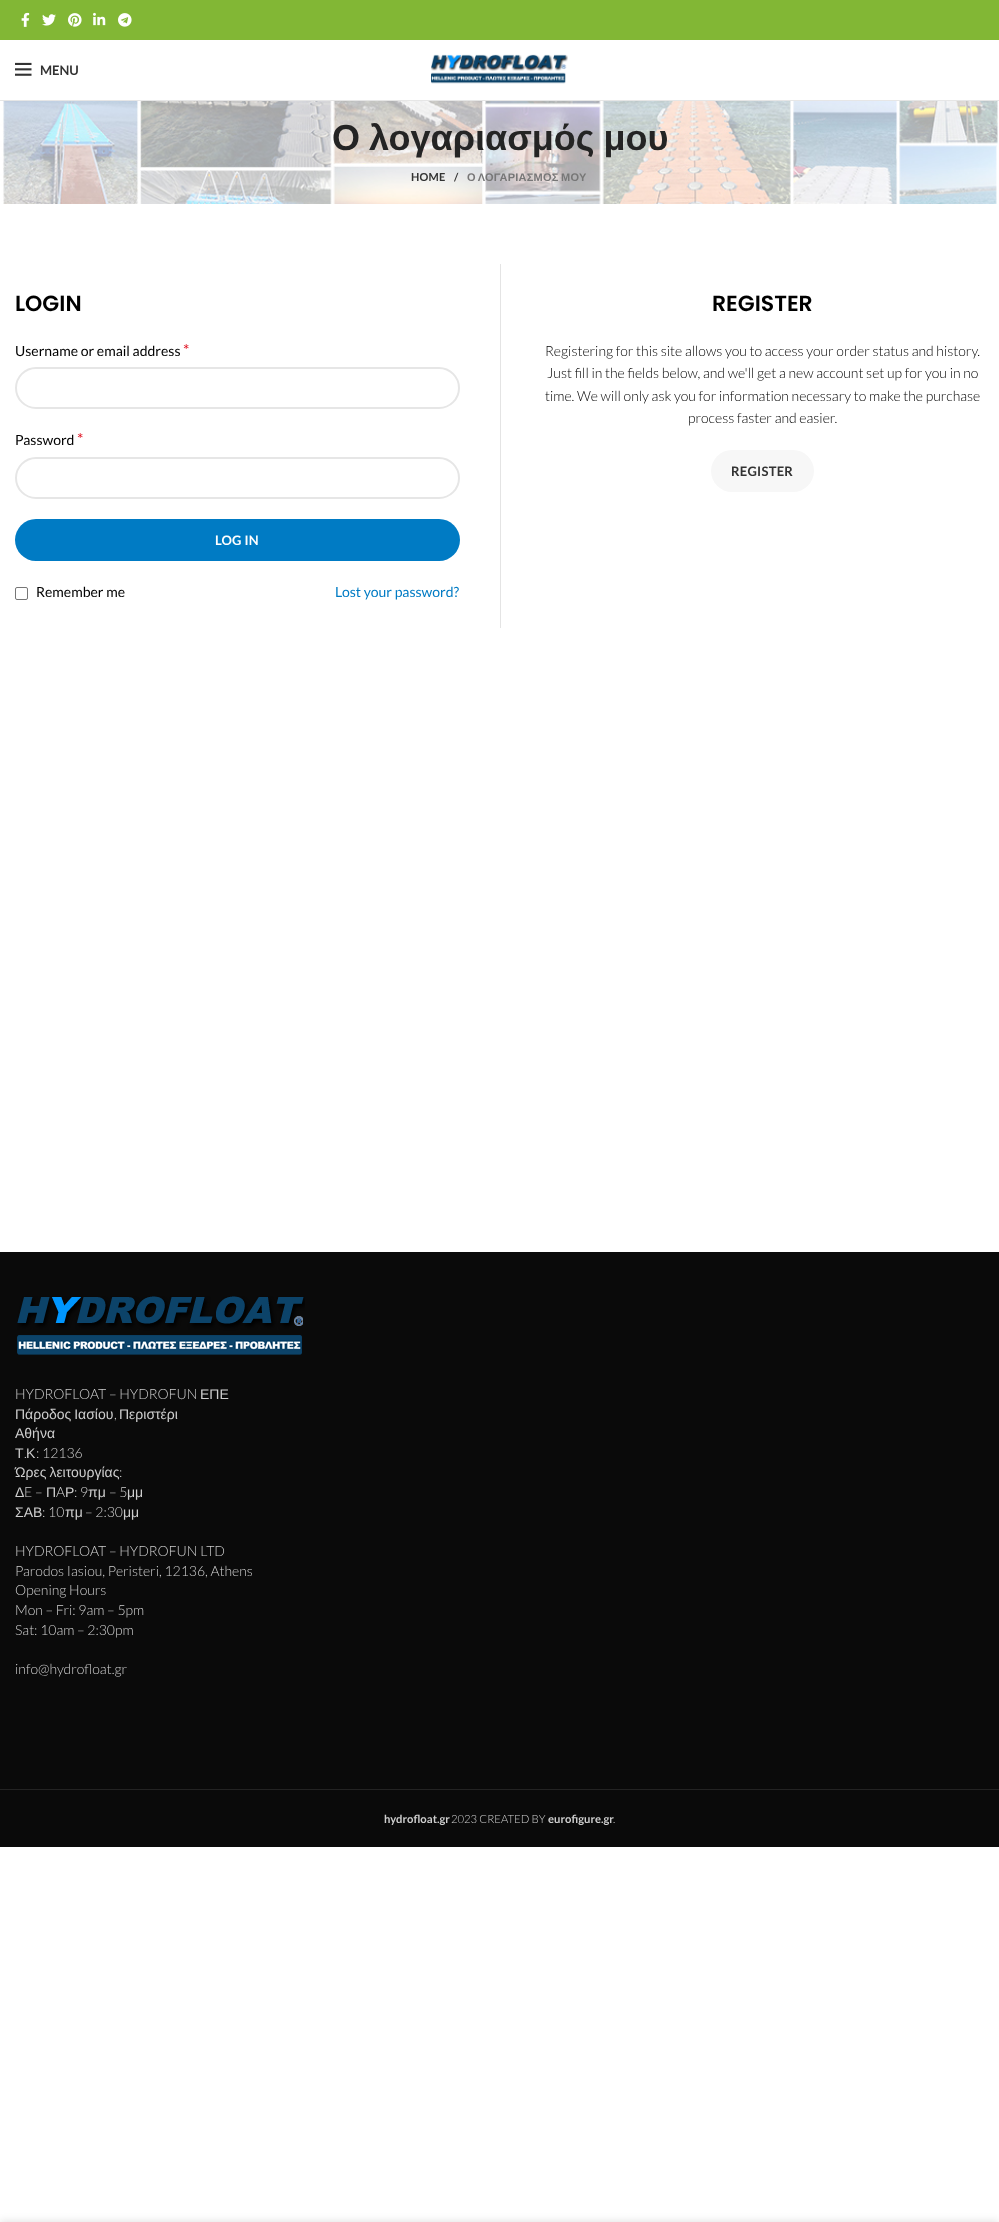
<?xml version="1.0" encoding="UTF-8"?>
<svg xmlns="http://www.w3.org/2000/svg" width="999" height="2222">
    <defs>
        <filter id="blur1" x="-50%" y="-200%" width="200%" height="500%"><feGaussianBlur stdDeviation="4.5"/></filter>
    </defs>
    <rect width="100%" height="100%" fill="#FFFFFF"/>
    <rect x="0" y="0" width="999" height="40" fill="#82B735"/>
    <image x="21" y="12" width="9" height="15" href="img_01.png"/>
    <image x="42" y="14" width="14" height="12" href="img_02.png"/>
    <image x="68" y="13" width="14" height="14" href="img_03.png"/>
    <image x="93" y="12" width="13" height="14" href="img_04.png"/>
    <image x="118" y="13" width="14" height="14" href="img_05.png"/>
    <rect x="0" y="100" width="999" height="1" fill="#E6E6E6"/>
    <image x="15" y="62" width="17" height="14" href="img_06.png"/>
    <text x="40" y="75" font-family="Lato" font-size="13" font-weight="700" fill="#333333">MENU</text>
    <image x="431" y="54" width="137" height="30" href="img_07.png"/>
    <image x="0" y="101" width="999" height="103" href="img_08.png"/>
    <text x="332" y="150" word-spacing="-1" font-family="Liberation Sans" font-size="36" font-weight="700" fill="#242424">Ο λογαριασμός μου</text>
    <text x="411" y="181" font-family="Lato" font-size="11" font-weight="700" letter-spacing="0.25" fill="#333333">HOME</text>
    <text x="454" y="181" font-family="Lato" font-size="11" font-weight="700" letter-spacing="0.25" fill="#333333">/</text>
    <text x="467" y="181" word-spacing="-1" font-family="Liberation Sans" font-size="11" font-weight="700" letter-spacing="0.25" fill="#777777">Ο ΛΟΓΑΡΙΑΣΜΟΣ ΜΟΥ</text>
    <text x="15" y="311" font-family="Poppins" font-size="22" font-weight="600" fill="#000000">LOGIN</text>
    <text x="15" y="356" font-family="Lato" font-size="14" fill="#000000">Username or email address</text>
    <text x="183" y="356" font-family="Lato" font-size="16" fill="#E01020">*</text>
    <rect x="16" y="368" width="443" height="40" rx="20" fill="none" stroke="#E6E6E6" stroke-width="2"/>
    <text x="15" y="445" font-family="Lato" font-size="14" fill="#000000">Password</text>
    <text x="77" y="445" font-family="Lato" font-size="16" fill="#E01020">*</text>
    <rect x="16" y="458" width="443" height="40" rx="20" fill="none" stroke="#E6E6E6" stroke-width="2"/>
    <rect x="15" y="519" width="445" height="42" rx="21" fill="#007BC4"/>
    <text x="215" y="545" font-family="Lato" font-size="13" font-weight="700" letter-spacing="0.25" fill="#FFFFFF">LOG IN</text>
    <rect x="15.5" y="587.5" width="12" height="12" rx="1.5" fill="none" stroke="#767676"/>
    <text x="36" y="597" font-family="Lato" font-size="14" fill="#000000">Remember me</text>
    <text x="335" y="597" font-family="Lato" font-size="14" fill="#007BC4">Lost your password?</text>
    <rect x="500" y="264" width="1" height="364" fill="#E4E4E4"/>
    <text x="712" y="311" font-family="Poppins" font-size="22" font-weight="600" fill="#000000">REGISTER</text>
    <text x="545" y="356" font-family="Lato" font-size="14" font-weight="300" fill="#000000">Registering for this site allows you to access your order status and history.</text>
    <text x="547" y="378" font-family="Lato" font-size="14" font-weight="300" fill="#000000">Just fill in the fields below, and we'll get a new account set up for you in no</text>
    <text x="545" y="401" font-family="Lato" font-size="14" font-weight="300" fill="#000000">time. We will only ask you for information necessary to make the purchase</text>
    <text x="688" y="423" font-family="Lato" font-size="14" font-weight="300" fill="#000000">process faster and easier.</text>
    <rect x="711" y="450" width="103" height="42" rx="21" fill="#F7F7F7"/>
    <text x="731" y="476" font-family="Lato" font-size="13" font-weight="700" letter-spacing="0.25" fill="#333333">REGISTER</text>
    <rect x="0" y="1252" width="999" height="595" fill="#0A0A0A"/>
    <image x="17" y="1296" width="288" height="59" href="img_09.png"/>
    <text x="15" y="1399" font-family="Lato" font-size="14" font-weight="300" fill="#CECECE">HYDROFLOAT – HYDROFUN</text>
    <text x="200" y="1399" font-family="Liberation Sans" font-size="14" fill="#CECECE">ΕΠΕ</text>
    <text x="15" y="1419" word-spacing="-1" font-family="Liberation Sans" font-size="14" fill="#CECECE">Πάροδος Ιασίου</text>
    <text x="114" y="1419" font-family="Lato" font-size="14" font-weight="300" fill="#CECECE">,</text>
    <text x="119" y="1419" font-family="Liberation Sans" font-size="14" fill="#CECECE">Περιστέρι</text>
    <text font-family="Liberation Sans" font-size="14" fill="#CECECE">
        <tspan x="15" y="1438">Αθήνα</tspan>
        <tspan x="15" y="1458">Τ</tspan>
    </text>
    <text x="24" y="1458" font-family="Lato" font-size="14" font-weight="300" fill="#CECECE">.</text>
    <text x="26" y="1458" font-family="Liberation Sans" font-size="14" fill="#CECECE">Κ</text>
    <text x="36" y="1458" font-family="Lato" font-size="14" font-weight="300" fill="#CECECE">: 12136</text>
    <text x="15" y="1477" word-spacing="-1" font-family="Liberation Sans" font-size="14" fill="#CECECE">Ώρες λειτουργίας</text>
    <text x="119" y="1477" font-family="Lato" font-size="14" font-weight="300" fill="#CECECE">:</text>
    <text x="15" y="1497" font-family="Liberation Sans" font-size="14" fill="#CECECE">Δ</text>
    <text x="24" y="1497" font-family="Lato" font-size="14" font-weight="300" fill="#CECECE">E –</text>
    <text x="46" y="1497" font-family="Liberation Sans" font-size="14" fill="#CECECE">Π</text>
    <text x="56" y="1497" font-family="Lato" font-size="14" font-weight="300" fill="#CECECE">A</text>
    <text x="65" y="1497" font-family="Liberation Sans" font-size="14" fill="#CECECE">Ρ</text>
    <text x="74" y="1497" font-family="Lato" font-size="14" font-weight="300" fill="#CECECE">: 9</text>
    <text x="88" y="1497" font-family="Liberation Sans" font-size="14" fill="#CECECE">πμ</text>
    <text x="109" y="1497" font-family="Lato" font-size="14" font-weight="300" fill="#CECECE">– 5</text>
    <text x="127" y="1497" font-family="Liberation Sans" font-size="14" fill="#CECECE">μμ</text>
    <text x="15" y="1517" font-family="Liberation Sans" font-size="14" fill="#CECECE">ΣΑΒ</text>
    <text x="42" y="1517" font-family="Lato" font-size="14" font-weight="300" fill="#CECECE">: 10</text>
    <text x="65" y="1517" font-family="Liberation Sans" font-size="14" fill="#CECECE">πμ</text>
    <text x="85" y="1517" font-family="Lato" font-size="14" font-weight="300" fill="#CECECE">– 2:30</text>
    <text x="123" y="1517" font-family="Liberation Sans" font-size="14" fill="#CECECE">μμ</text>
    <text font-family="Lato" font-size="14" font-weight="300" fill="#CECECE">
        <tspan x="15" y="1556">HYDROFLOAT – HYDROFUN LTD</tspan>
        <tspan x="15" y="1576">Parodos Iasiou, Peristeri, 12136, Athens</tspan>
        <tspan x="15" y="1595">Opening Hours</tspan>
        <tspan x="15" y="1615">Mon – Fri: 9am – 5pm</tspan>
        <tspan x="15" y="1635">Sat: 10am – 2:30pm</tspan>
    </text>
    <text x="15" y="1674" font-family="Lato" font-size="14" font-weight="300" fill="#CECECE">info@hydrofloat.gr</text>
    <rect x="0" y="1789" width="999" height="1" fill="#232323"/>
    <text x="384" y="1823" font-family="Lato" font-size="11.25" font-weight="700" fill="#CECECE">hydrofloat.gr</text>
    <text x="451" y="1823" font-family="Lato" font-size="11.25" font-weight="300" fill="#CECECE">2023 CREATED BY</text>
    <text x="548" y="1823" font-family="Lato" font-size="11.25" font-weight="700" fill="#CECECE">eurofigure.gr</text>
    <text x="613" y="1823" font-family="Lato" font-size="11.25" font-weight="300" fill="#CECECE">.</text>
    <rect x="0" y="2222" width="999" height="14" fill="#000000" fill-opacity="0.14" filter="url(#blur1)"/>
</svg>
